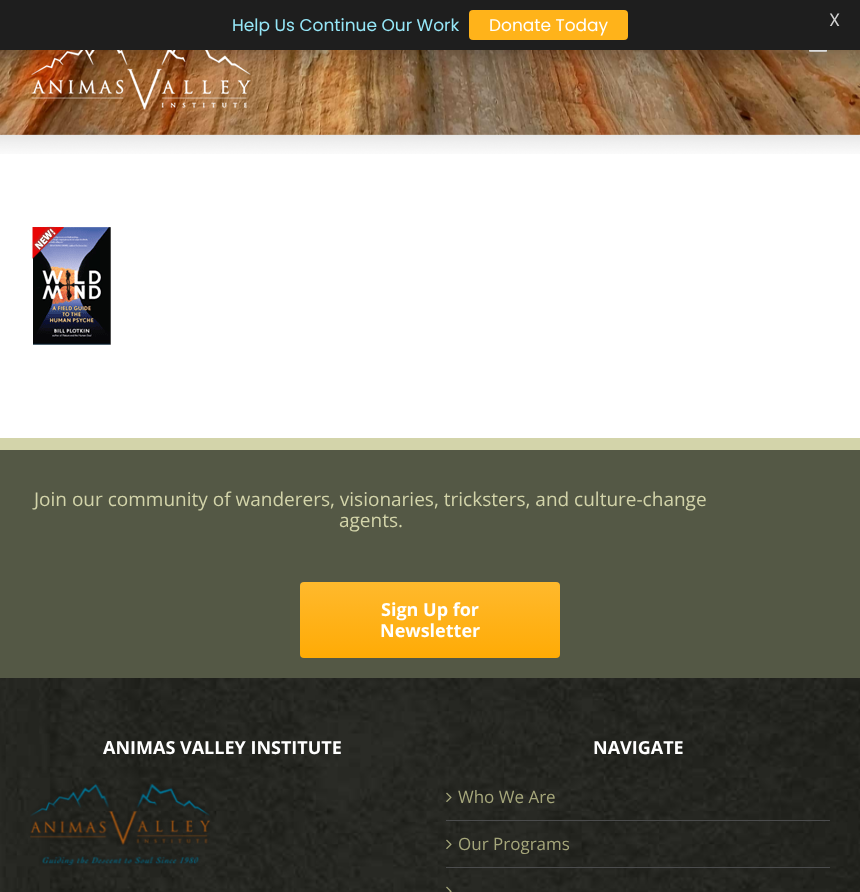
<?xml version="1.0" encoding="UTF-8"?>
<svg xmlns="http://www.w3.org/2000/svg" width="860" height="892">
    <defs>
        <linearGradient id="g1" gradientUnits="userSpaceOnUse" x1="430" y1="658" x2="430" y2="582"><stop offset="0" stop-color="#FFAB05"/><stop offset="1" stop-color="#FFB92D"/></linearGradient>
    </defs>
    <rect width="100%" height="100%" fill="#FFFFFF"/>
    <rect x="0" y="0" width="860" height="50" fill="#1E1E1E"/>
    <text x="232" y="31" font-family="Poppins" font-size="17" fill="#96E7F8">Help Us Continue Our Work</text>
    <rect x="469" y="10" width="159" height="30" rx="4" fill="#FFB31A"/>
    <text x="489" y="31" font-family="Poppins" font-size="17" fill="#FFFFFF">Donate Today</text>
    <text x="829" y="26" font-family="Poppins" font-size="18" fill="#D1D1D1">X</text>
    <image x="0" y="134" width="860" height="20" href="img_01.png"/>
    <image x="0" y="50" width="860" height="85" href="img_02.png"/>
    <image x="31" y="50" width="220" height="60" href="img_03.png"/>
    <image x="809" y="50" width="18" height="2" href="img_04.png"/>
    <image x="31" y="226" width="80" height="119" href="img_05.png"/>
    <rect x="0" y="450" width="860" height="228" fill="#545845"/>
    <rect x="0" y="438" width="860" height="12" fill="#D3D4AA"/>
    <text x="34" y="506" font-family="Open Sans" font-size="19" fill="#D3D4AA">Join our community of wanderers, visionaries, tricksters, and culture-change</text>
    <text x="339" y="527" font-family="Open Sans" font-size="19" fill="#D3D4AA">agents.</text>
    <rect x="300" y="582" width="260" height="76" rx="4" fill="url(#g1)"/>
    <text x="381" y="616" font-family="Open Sans" font-size="18" font-weight="700" fill="#FFFFFF">Sign Up for</text>
    <text x="380" y="637" font-family="Open Sans" font-size="18" font-weight="700" fill="#FFFFFF">Newsletter</text>
    <image x="0" y="678" width="860" height="214" href="img_06.png"/>
    <text x="103" y="754" font-family="Open Sans" font-size="18" font-weight="700" fill="#FFFFFF">ANIMAS VALLEY INSTITUTE</text>
    <image x="30" y="784" width="180" height="82" href="img_07.png"/>
    <text x="593" y="754" font-family="Open Sans" font-size="18" font-weight="700" fill="#FFFFFF">NAVIGATE</text>
    <rect x="446" y="820" width="384" height="1" fill="#4B4C4D"/>
    <image x="446" y="792" width="6" height="10" href="img_08.png"/>
    <text x="458" y="803" font-family="Open Sans" font-size="17" fill="#A6A77B">Who We Are</text>
    <rect x="446" y="867" width="384" height="1" fill="#4B4C4D"/>
    <image x="446" y="839" width="6" height="10" href="img_09.png"/>
    <text x="458" y="850" font-family="Open Sans" font-size="17" fill="#A6A77B">Our Programs</text>
    <image x="446" y="886" width="6" height="6" href="img_10.png"/>
</svg>
